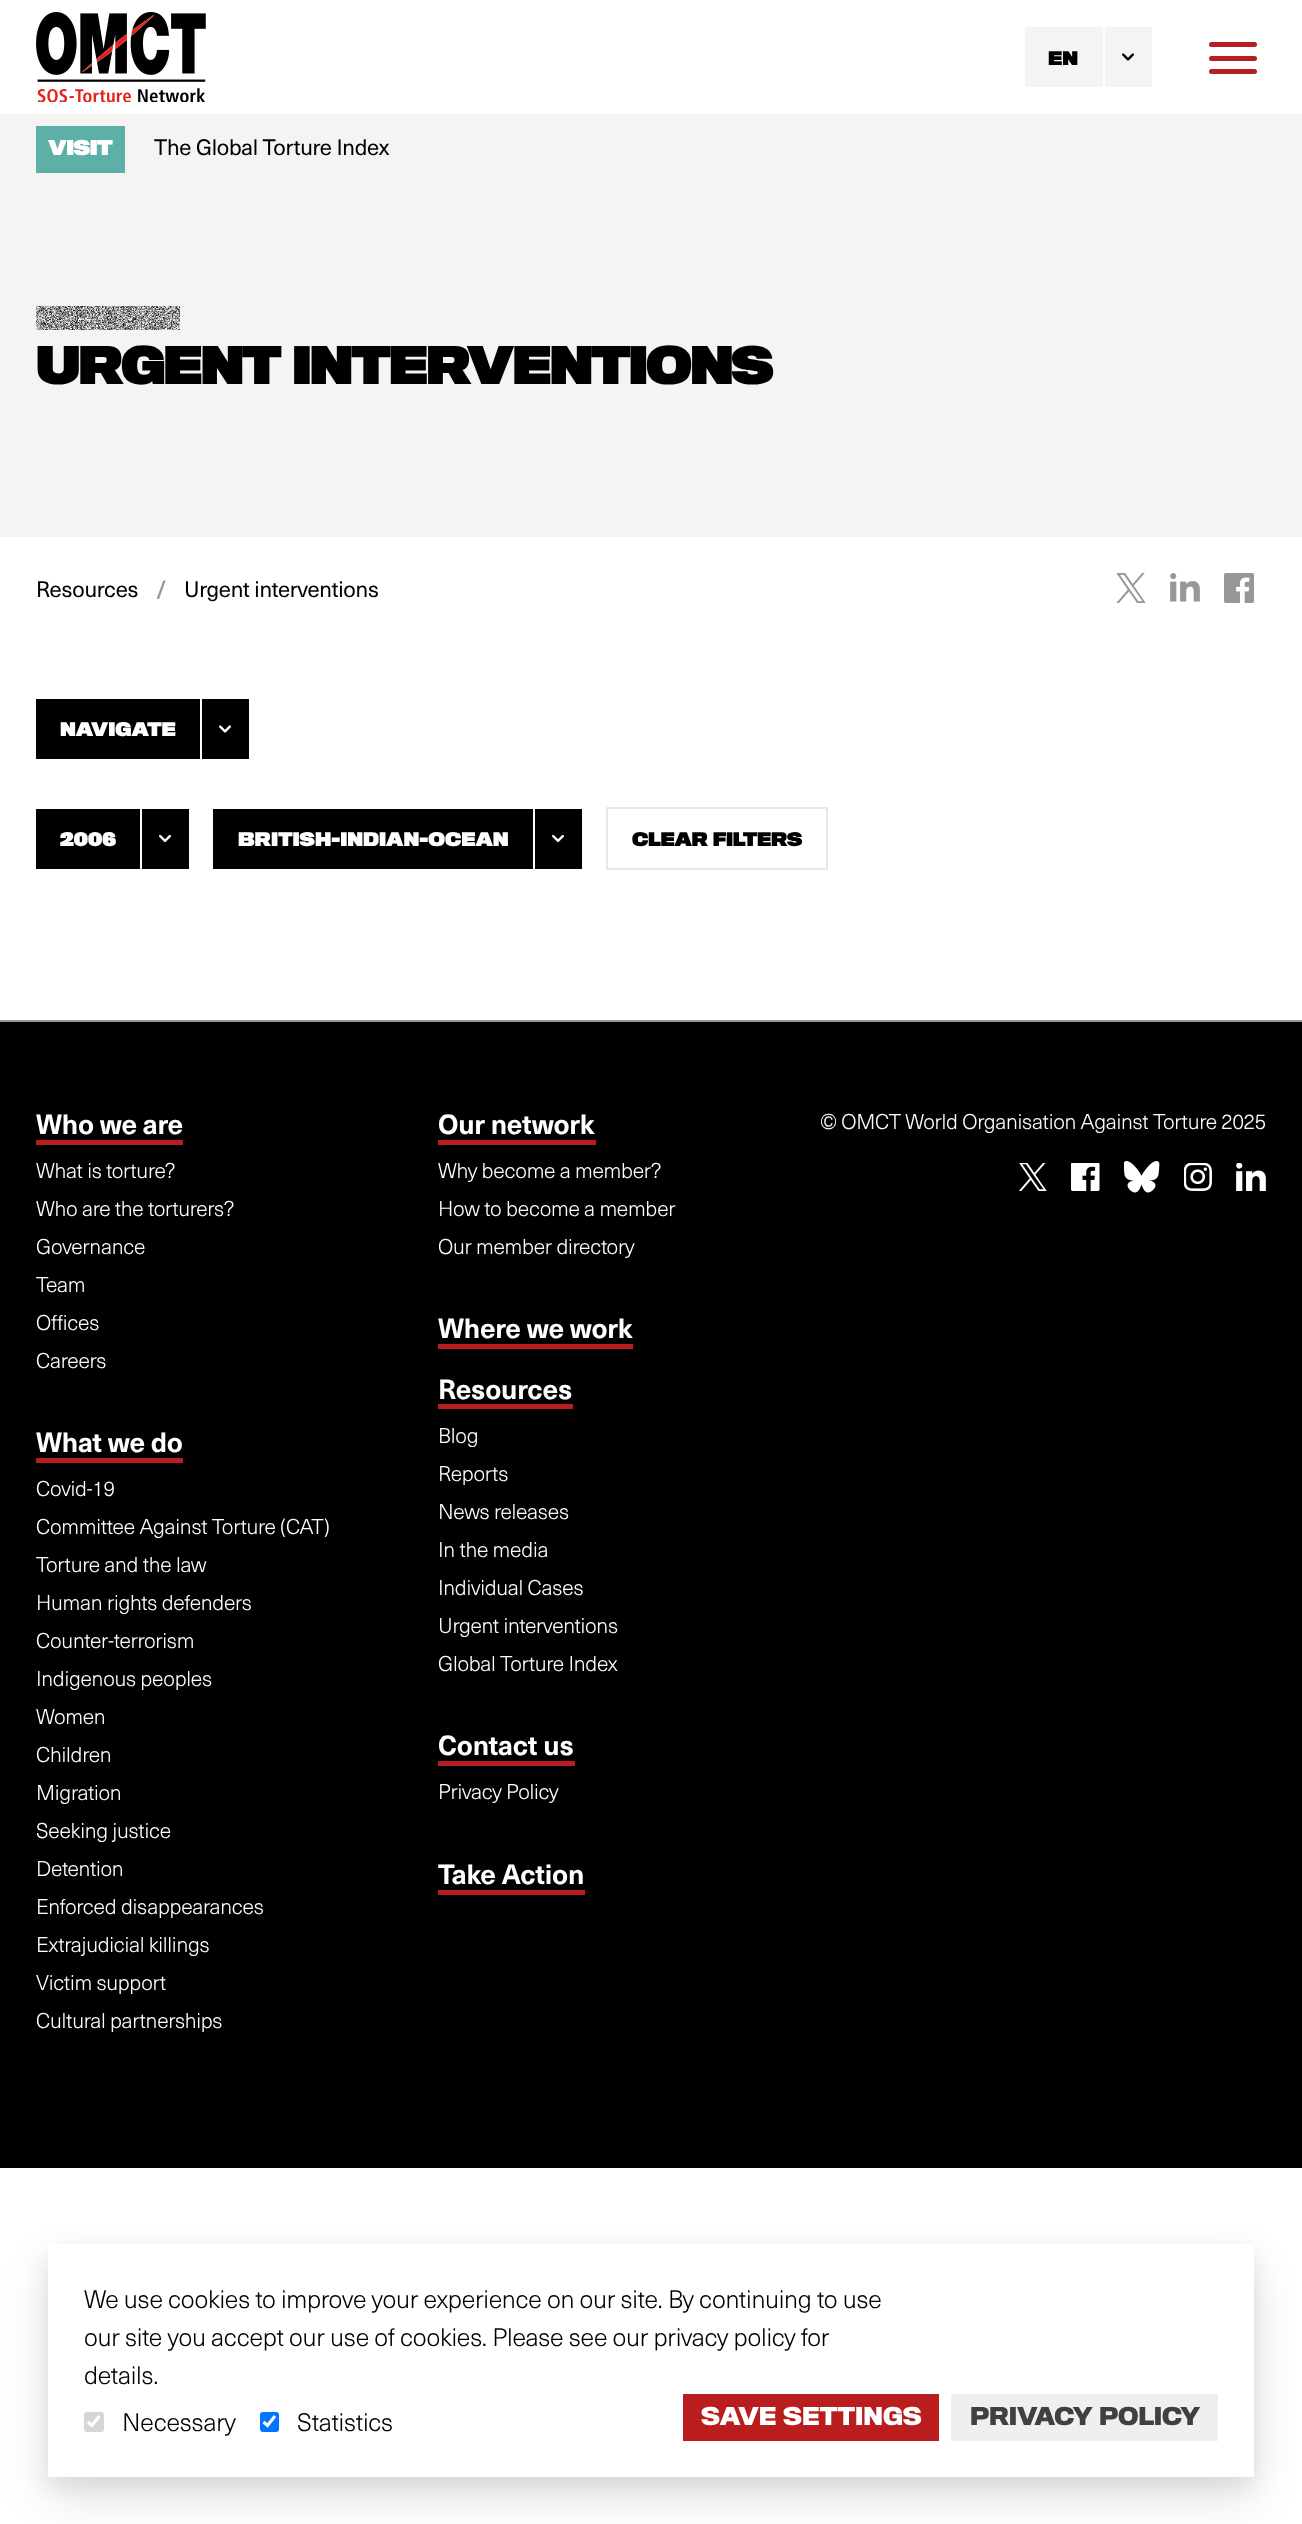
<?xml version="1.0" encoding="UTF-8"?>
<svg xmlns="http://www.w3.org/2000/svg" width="1302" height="2524">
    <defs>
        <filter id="blur1" x="-50%" y="-200%" width="200%" height="500%"><feGaussianBlur stdDeviation="11"/></filter>
        <filter id="blur2" x="-50%" y="-200%" width="200%" height="500%"><feGaussianBlur stdDeviation="22.5"/></filter>
    </defs>
    <rect width="100%" height="100%" fill="#FFFFFF"/>
    <image x="36" y="12" width="170" height="90" href="img_01.png"/>
    <rect x="1025" y="27" width="127" height="60" fill="#F5F4F2"/>
    <text x="1048" y="65" font-family="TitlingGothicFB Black" font-size="17.4" font-weight="900" fill="#000000">EN</text>
    <rect x="1103" y="27" width="2" height="60" fill="#FFFFFF"/>
    <image x="1122" y="53" width="12" height="8" href="img_02.png"/>
    <rect x="1209" y="56" width="48" height="5" rx="2.5" fill="#B91D1E"/>
    <rect x="1209" y="42" width="48" height="5" rx="2.5" fill="#B91D1E"/>
    <rect x="1209" y="69" width="48" height="5" rx="2.5" fill="#B91D1E"/>
    <rect x="0" y="114" width="1302" height="423" fill="#F5F4F2"/>
    <rect x="36" y="126" width="89" height="47" fill="#5DB0A8"/>
    <text x="48" y="155" font-family="TitlingGothicFB Black" font-size="19" font-weight="900" letter-spacing="-0.5" fill="#FFFFFF">VISIT</text>
    <text x="154" y="155" font-family="'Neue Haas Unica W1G'" font-size="22" letter-spacing="-0.28" fill="#000000">The Global Torture Index</text>
    <image x="36" y="306" width="144" height="24" href="img_03.png"/>
    <text x="36" y="384" font-family="TitlingGothicFB Black" font-size="48" font-weight="900" letter-spacing="-2.1" fill="#000000">URGENT INTERVENTIONS</text>
    <text x="36" y="597" font-family="'Neue Haas Unica W1G'" font-size="22" letter-spacing="-0.28" fill="#000000">Resources</text>
    <text x="156" y="597" font-family="'Neue Haas Unica W1G'" font-size="22" font-weight="700" letter-spacing="-0.28" fill="#979797">/</text>
    <text x="184" y="597" font-family="'Neue Haas Unica W1G'" font-size="22" letter-spacing="-0.28" fill="#000000">Urgent interventions</text>
    <image x="1116" y="573" width="30" height="30" href="img_04.png"/>
    <image x="1170" y="573" width="30" height="29" href="img_05.png"/>
    <image x="1224" y="573" width="30" height="30" href="img_06.png"/>
    <rect x="36" y="699" width="213" height="60" fill="#000000"/>
    <text x="60" y="736" font-family="TitlingGothicFB Black" font-size="17.4" font-weight="900" fill="#FFFFFF">NAVIGATE</text>
    <rect x="200" y="699" width="2" height="60" fill="#FFFFFF"/>
    <image x="219" y="725" width="12" height="8" href="img_07.png"/>
    <rect x="36" y="809" width="153" height="60" fill="#000000"/>
    <text x="60" y="846" font-family="TitlingGothicFB Black" font-size="17.4" font-weight="900" fill="#FFFFFF">2006</text>
    <rect x="140" y="809" width="2" height="60" fill="#FFFFFF"/>
    <image x="159" y="834" width="12" height="9" href="img_08.png"/>
    <rect x="213" y="809" width="369" height="60" fill="#000000"/>
    <text x="238" y="846" font-family="TitlingGothicFB Black" font-size="17.4" font-weight="900" fill="#FFFFFF">BRITISH-INDIAN-OCEAN</text>
    <rect x="533" y="809" width="2" height="60" fill="#FFFFFF"/>
    <image x="552" y="834" width="12" height="9" href="img_08.png"/>
    <rect x="607" y="808" width="220" height="61" fill="none" stroke="#E5E7EB" stroke-width="2"/>
    <text x="632" y="846" font-family="TitlingGothicFB Black" font-size="17.4" font-weight="900" letter-spacing="-0.28" fill="#000000">CLEAR FILTERS</text>
    <rect x="0" y="1022" width="1302" height="1146" fill="#000000"/>
    <rect x="0" y="1020" width="1302" height="2" fill="#979797"/>
    <text x="36" y="1134" font-family="'Neue Haas Unica W1G'" font-size="27.25" font-weight="700" letter-spacing="-0.25" fill="#FFFFFF">Who we are</text>
    <rect x="36" y="1140" width="147" height="5" fill="#B91D1E"/>
    <text font-family="'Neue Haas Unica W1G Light'" font-size="21" font-weight="300" letter-spacing="-0.28" fill="#FFFFFF">
        <tspan x="36" y="1178">What is torture?</tspan>
        <tspan x="36" y="1216">Who are the torturers?</tspan>
        <tspan x="36" y="1254">Governance</tspan>
        <tspan x="36" y="1292">Team</tspan>
        <tspan x="36" y="1330">Offices</tspan>
        <tspan x="36" y="1368">Careers</tspan>
    </text>
    <text x="438" y="1134" font-family="'Neue Haas Unica W1G'" font-size="27.25" font-weight="700" letter-spacing="-0.25" fill="#FFFFFF">Our network</text>
    <rect x="438" y="1140" width="158" height="5" fill="#B91D1E"/>
    <text font-family="'Neue Haas Unica W1G Light'" font-size="21" font-weight="300" letter-spacing="-0.28" fill="#FFFFFF">
        <tspan x="438" y="1178">Why become a member?</tspan>
        <tspan x="438" y="1216">How to become a member</tspan>
        <tspan x="438" y="1254">Our member directory</tspan>
    </text>
    <text x="438" y="1338" font-family="'Neue Haas Unica W1G'" font-size="27.25" font-weight="700" letter-spacing="-0.25" fill="#FFFFFF">Where we work</text>
    <rect x="438" y="1344" width="195" height="5" fill="#B91D1E"/>
    <text x="36" y="1452" font-family="'Neue Haas Unica W1G'" font-size="27.25" font-weight="700" letter-spacing="-0.25" fill="#FFFFFF">What we do</text>
    <rect x="36" y="1458" width="147" height="5" fill="#B91D1E"/>
    <text font-family="'Neue Haas Unica W1G Light'" font-size="21" font-weight="300" letter-spacing="-0.28" fill="#FFFFFF">
        <tspan x="36" y="1496">Covid-19</tspan>
        <tspan x="36" y="1534">Committee Against Torture (CAT)</tspan>
        <tspan x="36" y="1572">Torture and the law</tspan>
        <tspan x="36" y="1610">Human rights defenders</tspan>
        <tspan x="36" y="1648">Counter-terrorism</tspan>
        <tspan x="36" y="1686">Indigenous peoples</tspan>
        <tspan x="36" y="1724">Women</tspan>
        <tspan x="36" y="1762">Children</tspan>
        <tspan x="36" y="1800">Migration</tspan>
        <tspan x="36" y="1838">Seeking justice</tspan>
        <tspan x="36" y="1876">Detention</tspan>
        <tspan x="36" y="1914">Enforced disappearances</tspan>
        <tspan x="36" y="1952">Extrajudicial killings</tspan>
        <tspan x="36" y="1990">Victim support</tspan>
        <tspan x="36" y="2028">Cultural partnerships</tspan>
    </text>
    <text x="438" y="1399" font-family="'Neue Haas Unica W1G'" font-size="27.25" font-weight="700" letter-spacing="-0.25" fill="#FFFFFF">Resources</text>
    <rect x="438" y="1404" width="135" height="5" fill="#B91D1E"/>
    <text font-family="'Neue Haas Unica W1G Light'" font-size="21" font-weight="300" letter-spacing="-0.28" fill="#FFFFFF">
        <tspan x="438" y="1443">Blog</tspan>
        <tspan x="438" y="1481">Reports</tspan>
        <tspan x="438" y="1519">News releases</tspan>
        <tspan x="438" y="1557">In the media</tspan>
        <tspan x="438" y="1595">Individual Cases</tspan>
        <tspan x="438" y="1633">Urgent interventions</tspan>
        <tspan x="438" y="1671">Global Torture Index</tspan>
    </text>
    <text x="438" y="1755" font-family="'Neue Haas Unica W1G'" font-size="27.25" font-weight="700" letter-spacing="-0.25" fill="#FFFFFF">Contact us</text>
    <rect x="438" y="1761" width="137" height="5" fill="#B91D1E"/>
    <text x="438" y="1799" font-family="'Neue Haas Unica W1G Light'" font-size="21" font-weight="300" letter-spacing="-0.28" fill="#FFFFFF">Privacy Policy</text>
    <text x="438" y="1884" font-family="'Neue Haas Unica W1G'" font-size="27.25" font-weight="700" letter-spacing="-0.25" fill="#FFFFFF">Take Action</text>
    <rect x="438" y="1890" width="147" height="5" fill="#B91D1E"/>
    <text x="820" y="1129" font-family="'Neue Haas Unica W1G Light'" font-size="21" font-weight="300" letter-spacing="-0.28" fill="#FFFFFF">© OMCT World Organisation Against Torture 2025</text>
    <image x="1019" y="1163" width="28" height="28" href="img_09.png"/>
    <image x="1071" y="1163" width="29" height="28" href="img_10.png"/>
    <image x="1124" y="1161" width="36" height="32" href="img_11.png"/>
    <image x="1184" y="1163" width="28" height="28" href="img_12.png"/>
    <image x="1236" y="1163" width="30" height="28" href="img_13.png"/>
    <rect x="48" y="2252" width="1206" height="232" fill="#000000" fill-opacity="0.08" filter="url(#blur1)"/>
    <rect x="48" y="2267" width="1206" height="232" fill="#000000" fill-opacity="0.11" filter="url(#blur2)"/>
    <rect x="48" y="2244" width="1206" height="233" fill="#FFFFFF"/>
    <text font-family="'Neue Haas Unica W1G Light'" font-size="24.9" font-weight="300" letter-spacing="-0.28" fill="#000000">
        <tspan x="84" y="2308">We use cookies to improve your experience on our site. By continuing to use</tspan>
        <tspan x="84" y="2346">our site you accept our use of cookies. Please see our privacy policy for</tspan>
        <tspan x="84" y="2384">details.</tspan>
    </text>
    <rect x="84" y="2412" width="20" height="20" rx="3" fill="#D6D6D6"/>
    <path d="M 88 2422 L 92 2425.5 L 99.5 2416" fill="none" stroke="#FFFFFF" stroke-width="3.1"/>
    <text x="122" y="2431" font-family="'Neue Haas Unica W1G Light'" font-size="24.9" font-weight="300" letter-spacing="-0.28" fill="#000000">Necessary</text>
    <rect x="260" y="2412" width="19" height="20" rx="3" fill="#0075FF"/>
    <path d="M 263.5 2422 L 267.5 2425.5 L 275 2416" fill="none" stroke="#FFFFFF" stroke-width="3.1"/>
    <text x="297" y="2431" font-family="'Neue Haas Unica W1G Light'" font-size="24.9" font-weight="300" letter-spacing="-0.28" fill="#000000">Statistics</text>
    <rect x="683" y="2394" width="256" height="47" fill="#B91D1E"/>
    <text x="701" y="2425" font-family="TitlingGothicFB" font-size="22.8" font-weight="700" fill="#FFFFFF">SAVE SETTINGS</text>
    <rect x="951" y="2394" width="267" height="47" fill="#EFEFEF"/>
    <text x="970" y="2425" font-family="TitlingGothicFB" font-size="22.8" font-weight="700" letter-spacing="-0.28" fill="#404040">PRIVACY POLICY</text>
</svg>
